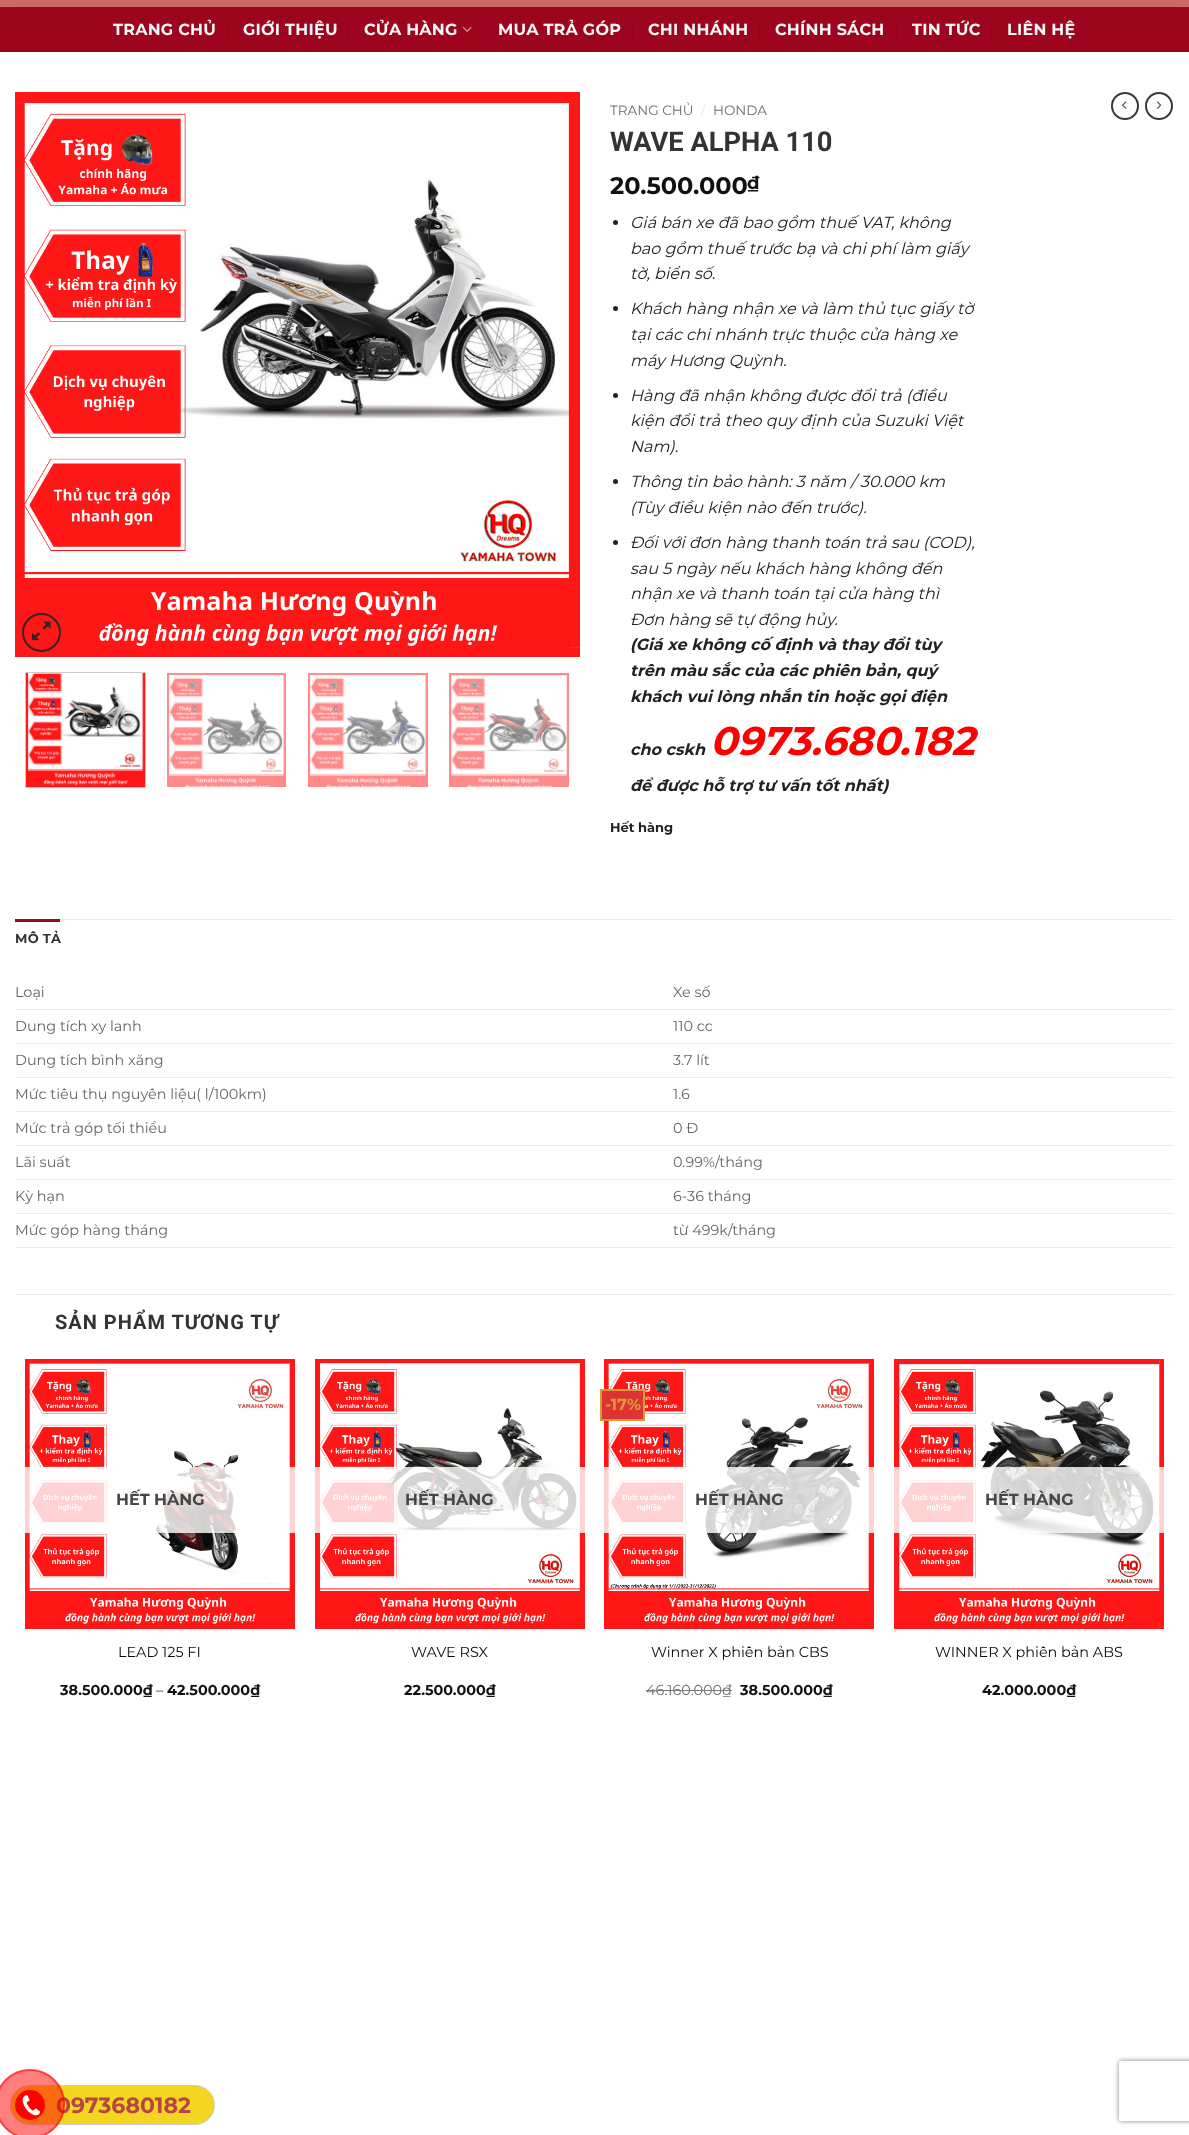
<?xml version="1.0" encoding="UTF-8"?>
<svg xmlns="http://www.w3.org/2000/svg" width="1189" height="2135">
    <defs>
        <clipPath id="clip1"><path d="M 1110 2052 H 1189 V 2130 H 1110 Z M 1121 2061 H 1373 C 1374 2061 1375 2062 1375 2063 V 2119 C 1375 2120 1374 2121 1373 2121 H 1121 C 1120 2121 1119 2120 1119 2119 V 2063 C 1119 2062 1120 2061 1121 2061 Z" clip-rule="evenodd"/></clipPath>
        <filter id="blur1" x="-50%" y="-200%" width="200%" height="500%"><feGaussianBlur stdDeviation="2.5"/></filter>
    </defs>
    <rect width="100%" height="100%" fill="#FFFFFF"/>
    <rect x="0" y="0" width="1189" height="7" fill="#CD6969"/>
    <rect x="0" y="7" width="1189" height="45" fill="#9D051E"/>
    <rect x="15" y="7" width="1159" height="1" fill="#91081E"/>
    <text x="113" y="35" font-family="Montserrat" font-size="16" font-weight="700" letter-spacing="0.25" fill="#F6F7F7">TRANG CHỦ</text>
    <rect x="227" y="23" width="1" height="15" fill="#8D051B"/>
    <text x="243" y="35" font-family="Montserrat" font-size="16" font-weight="700" letter-spacing="0.25" fill="#F6F7F7">GIỚI THIỆU</text>
    <rect x="348" y="23" width="1" height="15" fill="#8D051B"/>
    <text x="364" y="35" font-family="Montserrat" font-size="16" font-weight="700" letter-spacing="0.25" fill="#F6F7F7">CỬA HÀNG</text>
    <image x="462" y="26" width="10" height="6" href="img_01.png"/>
    <rect x="482" y="23" width="1" height="15" fill="#8D051B"/>
    <text x="498" y="35" font-family="Montserrat" font-size="16" font-weight="700" letter-spacing="0.25" fill="#F6F7F7">MUA TRẢ GÓP</text>
    <rect x="632" y="23" width="1" height="15" fill="#8D051B"/>
    <text x="648" y="35" font-family="Montserrat" font-size="16" font-weight="700" letter-spacing="0.25" fill="#F6F7F7">CHI NHÁNH</text>
    <rect x="759" y="23" width="1" height="15" fill="#8D051B"/>
    <text x="775" y="35" font-family="Montserrat" font-size="16" font-weight="700" letter-spacing="0.25" fill="#F6F7F7">CHÍNH SÁCH</text>
    <rect x="896" y="23" width="1" height="15" fill="#8D051B"/>
    <text x="912" y="35" font-family="Montserrat" font-size="16" font-weight="700" letter-spacing="0.25" fill="#F6F7F7">TIN TỨC</text>
    <rect x="991" y="23" width="1" height="15" fill="#8D051B"/>
    <text x="1007" y="35" font-family="Montserrat" font-size="16" font-weight="700" letter-spacing="0.25" fill="#F6F7F7">LIÊN HỆ</text>
    <image x="15" y="92" width="565" height="565" href="img_02.png"/>
    <circle cx="41.5" cy="632.5" r="18.5" fill="none" stroke="#392222" stroke-width="2"/>
    <image x="32" y="621" width="19" height="20" href="img_03.png"/>
    <rect x="25.5" y="672.5" width="120" height="115" fill="none" stroke="#CCCCCC"/>
    <image x="26" y="673" width="119" height="114" href="img_04.png"/>
    <image x="167" y="673" width="119" height="114" href="img_05.png"/>
    <image x="308" y="673" width="120" height="114" href="img_06.png"/>
    <image x="449" y="673" width="120" height="114" href="img_07.png"/>
    <text x="610" y="115" font-family="Montserrat" font-size="13.5" fill="#6E6E6E">TRANG CHỦ</text>
    <text x="701" y="115" font-family="Montserrat" font-size="13.5" font-weight="100" fill="#B2B2B2">/</text>
    <text x="713" y="115" font-family="Montserrat" font-size="13.5" fill="#6E6E6E">HONDA</text>
    <text x="610" y="151" font-family="Roboto" font-size="27.25" font-weight="700" fill="#333333">WAVE ALPHA 110</text>
    <text x="610" y="194" font-family="Montserrat" font-size="24" font-weight="700" fill="#111111">20.500.000</text>
    <text x="747" y="189" font-family="Montserrat" font-size="18" font-weight="700" fill="#111111">₫</text>
    <circle cx="615.5" cy="222.5" r="2.5" fill="#222222"/>
    <text font-family="Montserrat" font-size="16" font-style="italic" fill="#222222">
        <tspan x="630" y="228">Giá bán xe đã bao gồm thuế VAT, không</tspan>
        <tspan x="630" y="254">bao gồm thuế trước bạ và chi phí làm giấy</tspan>
        <tspan x="630" y="279">tờ, biển số.</tspan>
    </text>
    <circle cx="615.5" cy="308.5" r="2.5" fill="#222222"/>
    <text font-family="Montserrat" font-size="16" font-style="italic" fill="#222222">
        <tspan x="630" y="314">Khách hàng nhận xe và làm thủ tục giấy tờ</tspan>
        <tspan x="630" y="340">tại các chi nhánh trực thuộc cửa hàng xe</tspan>
        <tspan x="630" y="366">máy Hương Quỳnh.</tspan>
    </text>
    <circle cx="615.5" cy="395.5" r="2.5" fill="#222222"/>
    <text font-family="Montserrat" font-size="16" font-style="italic" fill="#222222">
        <tspan x="630" y="401">Hàng đã nhận không được đổi trả (điều</tspan>
        <tspan x="630" y="426">kiện đổi trả theo quy định của Suzuki Việt</tspan>
        <tspan x="630" y="452">Nam).</tspan>
    </text>
    <circle cx="615.5" cy="481.5" r="2.5" fill="#222222"/>
    <text font-family="Montserrat" font-size="16" font-style="italic" fill="#222222">
        <tspan x="630" y="487">Thông tin bảo hành: 3 năm / 30.000 km</tspan>
        <tspan x="630" y="513">(Tùy điều kiện nào đến trước).</tspan>
    </text>
    <circle cx="615.5" cy="542.5" r="2.5" fill="#222222"/>
    <text font-family="Montserrat" font-size="16" font-style="italic" fill="#222222">
        <tspan x="630" y="548">Đối với đơn hàng thanh toán trả sau (COD),</tspan>
        <tspan x="630" y="574">sau 5 ngày nếu khách hàng không đến</tspan>
        <tspan x="630" y="599">nhận xe và thanh toán tại cửa hàng thì</tspan>
        <tspan x="630" y="625">Đơn hàng sẽ tự động hủy.</tspan>
    </text>
    <text font-family="Montserrat" font-size="16" font-weight="700" font-style="italic" fill="#222222">
        <tspan x="630" y="650">(Giá xe không cố định và thay đổi tùy</tspan>
        <tspan x="630" y="676">trên màu sắc của các phiên bản, quý</tspan>
        <tspan x="630" y="702">khách vui lòng nhắn tin hoặc gọi điện</tspan>
    </text>
    <text x="630" y="755" font-family="Montserrat" font-size="16" font-weight="700" font-style="italic" fill="#222222">cho cskh</text>
    <text x="710" y="755" font-family="Montserrat" font-size="40" font-weight="700" font-style="italic" fill="#FF0000">0973.680.182</text>
    <text x="630" y="791" font-family="Montserrat" font-size="16" font-weight="700" font-style="italic" fill="#222222">để được hỗ trợ tư vấn tốt nhất)</text>
    <text x="610" y="832" font-family="Montserrat" font-size="13" font-weight="700" fill="#222222">Hết hàng</text>
    <circle cx="1125" cy="106" r="13" fill="none" stroke="#393939" stroke-width="2"/>
    <image x="1122" y="101" width="5" height="8" href="img_08.png"/>
    <circle cx="1159" cy="106" r="13" fill="none" stroke="#393939" stroke-width="2"/>
    <image x="1156" y="101" width="6" height="8" href="img_09.png"/>
    <rect x="60" y="919" width="1114" height="1" fill="#ECECEC"/>
    <rect x="15" y="919" width="45" height="3" fill="#9D051E"/>
    <text x="15" y="943" font-family="Montserrat" font-size="13" font-weight="700" letter-spacing="0.25" fill="#333333">MÔ TẢ</text>
    <rect x="15" y="1009" width="1159" height="1" fill="#ECECEC"/>
    <text x="15" y="997" font-family="Montserrat" font-size="14.4" fill="#666666">Loại</text>
    <text x="673" y="997" font-family="Montserrat" font-size="14.4" fill="#666666">Xe số</text>
    <rect x="15" y="1043" width="1159" height="1" fill="#ECECEC"/>
    <text x="15" y="1031" font-family="Montserrat" font-size="14.4" fill="#666666">Dung tích xy lanh</text>
    <text x="673" y="1031" font-family="Montserrat" font-size="14.4" fill="#666666">110 cc</text>
    <rect x="15" y="1077" width="1159" height="1" fill="#ECECEC"/>
    <text x="15" y="1065" font-family="Montserrat" font-size="14.4" fill="#666666">Dung tích bình xăng</text>
    <text x="673" y="1065" font-family="Montserrat" font-size="14.4" fill="#666666">3.7 lít</text>
    <rect x="15" y="1111" width="1159" height="1" fill="#ECECEC"/>
    <text x="15" y="1099" font-family="Montserrat" font-size="14.4" fill="#666666">Mức tiêu thụ nguyên liệu( l/100km)</text>
    <text x="673" y="1099" font-family="Montserrat" font-size="14.4" fill="#666666">1.6</text>
    <rect x="15" y="1145" width="1159" height="1" fill="#ECECEC"/>
    <text x="15" y="1133" font-family="Montserrat" font-size="14.4" fill="#666666">Mức trả góp tối thiểu</text>
    <text x="673" y="1133" font-family="Montserrat" font-size="14.4" fill="#666666">0 Đ</text>
    <rect x="15" y="1179" width="1159" height="1" fill="#ECECEC"/>
    <text x="15" y="1167" font-family="Montserrat" font-size="14.4" fill="#666666">Lãi suất</text>
    <text x="673" y="1167" font-family="Montserrat" font-size="14.4" fill="#666666">0.99%/tháng</text>
    <rect x="15" y="1213" width="1159" height="1" fill="#ECECEC"/>
    <text x="15" y="1201" font-family="Montserrat" font-size="14.4" fill="#666666">Kỳ hạn</text>
    <text x="673" y="1201" font-family="Montserrat" font-size="14.4" fill="#666666">6-36 tháng</text>
    <rect x="15" y="1247" width="1159" height="1" fill="#ECECEC"/>
    <text x="15" y="1235" font-family="Montserrat" font-size="14.4" fill="#666666">Mức góp hàng tháng</text>
    <text x="673" y="1235" font-family="Montserrat" font-size="14.4" fill="#666666">từ 499k/tháng</text>
    <rect x="15" y="1294" width="1159" height="1" fill="#ECECEC"/>
    <text x="55" y="1329" font-family="Roboto" font-size="20" font-weight="700" letter-spacing="1" fill="#333333">SẢN PHẨM TƯƠNG TỰ</text>
    <image x="25" y="1359" width="270" height="270" href="img_10.png"/>
    <rect x="25" y="1467" width="270" height="66" fill="#FFFFFF" fill-opacity="0.81"/>
    <text x="116" y="1505" font-family="Montserrat" font-size="16" font-weight="700" fill="#464646">HẾT HÀNG</text>
    <text x="118" y="1657" font-family="Montserrat" font-size="14.4" fill="#0A0A0A">LEAD 125 FI</text>
    <text x="60" y="1695" font-family="Montserrat" font-size="14.4" font-weight="700" fill="#111111">38.500.000₫</text>
    <text x="156" y="1695" font-family="Montserrat" font-size="14.4" fill="#222222">–</text>
    <text x="167" y="1695" font-family="Montserrat" font-size="14.4" font-weight="700" fill="#111111">42.500.000₫</text>
    <image x="315" y="1359" width="270" height="270" href="img_11.png"/>
    <rect x="315" y="1467" width="270" height="66" fill="#FFFFFF" fill-opacity="0.81"/>
    <text x="405" y="1505" font-family="Montserrat" font-size="16" font-weight="700" fill="#464646">HẾT HÀNG</text>
    <text x="411" y="1657" font-family="Montserrat" font-size="14.4" fill="#0A0A0A">WAVE RSX</text>
    <text x="404" y="1695" font-family="Montserrat" font-size="14.4" font-weight="700" fill="#111111">22.500.000₫</text>
    <image x="604" y="1359" width="270" height="270" href="img_12.png"/>
    <rect x="601" y="1390" width="43" height="30" fill="#DD3333" stroke="#DD9933" stroke-width="2"/>
    <text x="605" y="1410" font-family="Montserrat" font-size="16" font-weight="700" fill="#DD9933">-17%</text>
    <rect x="604" y="1467" width="270" height="66" fill="#FFFFFF" fill-opacity="0.81"/>
    <text x="695" y="1505" font-family="Montserrat" font-size="16" font-weight="700" fill="#464646">HẾT HÀNG</text>
    <text x="651" y="1657" font-family="Montserrat" font-size="14.4" fill="#0A0A0A">Winner X phiên bản CBS</text>
    <text x="646" y="1695" font-family="Montserrat" font-size="14.4" fill="#6E6E6E">46.160.000₫</text>
    <rect x="646" y="1690" width="86" height="1" fill="#7A7A7A"/>
    <text x="740" y="1695" font-family="Montserrat" font-size="14.4" font-weight="700" fill="#111111">38.500.000₫</text>
    <image x="894" y="1359" width="270" height="270" href="img_13.png"/>
    <rect x="894" y="1467" width="270" height="66" fill="#FFFFFF" fill-opacity="0.81"/>
    <text x="985" y="1505" font-family="Montserrat" font-size="16" font-weight="700" fill="#464646">HẾT HÀNG</text>
    <text x="935" y="1657" font-family="Montserrat" font-size="14.4" fill="#0A0A0A">WINNER X phiên bản ABS</text>
    <text x="982" y="1695" font-family="Montserrat" font-size="14.4" font-weight="700" fill="#111111">42.000.000₫</text>
    <rect x="10.5" y="2085.5" width="204" height="39" rx="19.5" fill="#F2D621" stroke="#CCCCCC"/>
    <text x="56" y="2113" font-family="Montserrat" font-size="22" font-weight="700" fill="#BA4444">0973680182</text>
    <circle cx="30" cy="2104" r="35" fill="#FF0000" fill-opacity="0.5"/>
    <circle cx="30" cy="2104" r="34" fill="none" stroke="#FF0000" stroke-opacity="0.5" stroke-width="2"/>
    <circle cx="30" cy="2105" r="15" fill="#FF0000"/>
    <image x="22" y="2095" width="18" height="21" href="img_14.png"/>
    <g clip-path="url(#clip1)">
        <rect x="1119" y="2061" width="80" height="60" rx="2" fill="#808080" filter="url(#blur1)"/>
    </g>
</svg>
